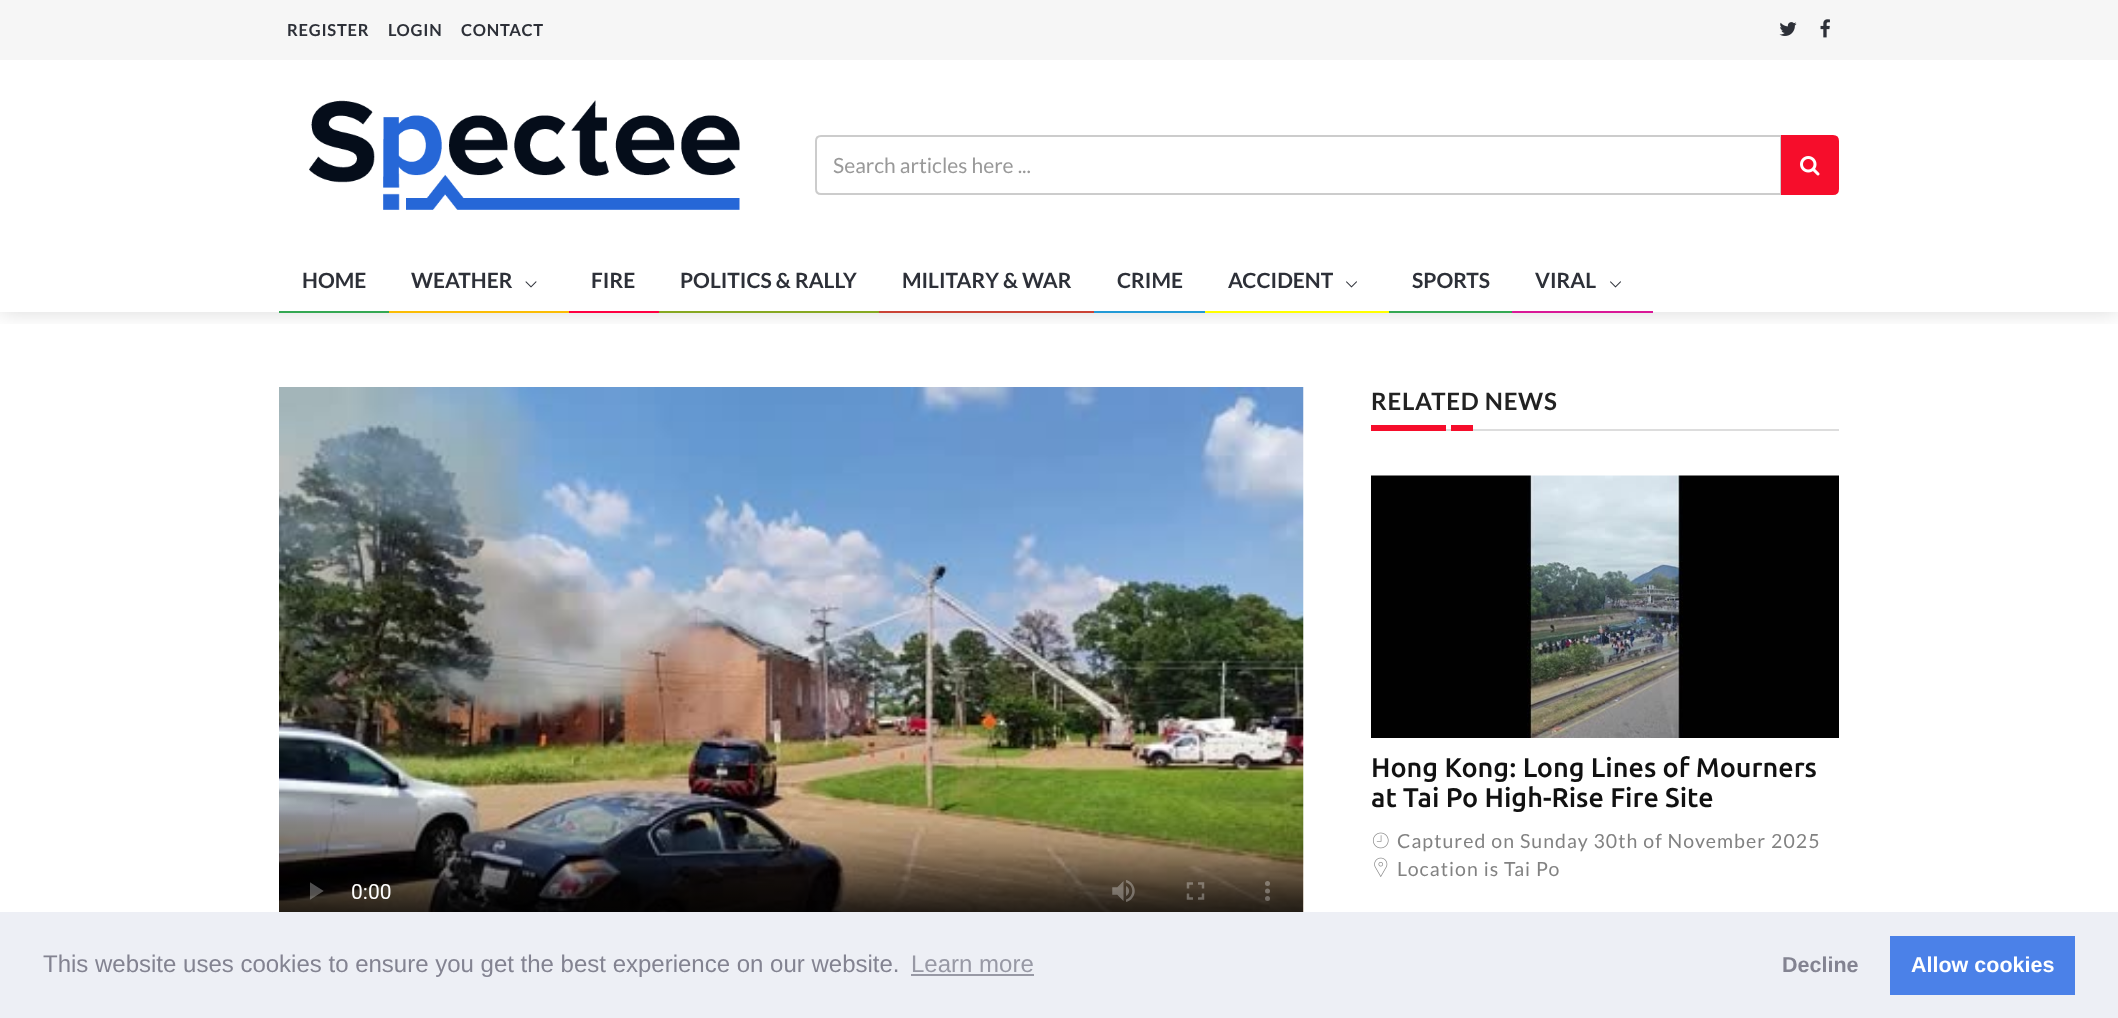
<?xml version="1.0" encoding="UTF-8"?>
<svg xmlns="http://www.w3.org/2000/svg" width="2118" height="1018">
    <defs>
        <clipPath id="clip1"><rect x="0" y="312" width="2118" height="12"/></clipPath>
        <filter id="blur1" x="-50%" y="-200%" width="200%" height="500%"><feGaussianBlur stdDeviation="11"/></filter>
    </defs>
    <rect width="100%" height="100%" fill="#FFFFFF"/>
    <g clip-path="url(#clip1)">
        <rect x="0" y="0" width="2118" height="312" fill="#000000" fill-opacity="0.15" filter="url(#blur1)"/>
    </g>
    <rect x="0" y="0" width="2118" height="60" fill="#F6F6F6"/>
    <text x="287" y="36" font-family="Lato" font-size="16.5" font-weight="700" letter-spacing="0.75" fill="#2D3038">REGISTER</text>
    <text x="388" y="36" font-family="Lato" font-size="16.5" font-weight="700" letter-spacing="0.75" fill="#2D3038">LOGIN</text>
    <text x="461" y="36" font-family="Lato" font-size="16.5" font-weight="700" letter-spacing="0.75" fill="#2D3038">CONTACT</text>
    <image x="1779" y="22" width="18" height="14" href="img_01.png"/>
    <image x="1820" y="19" width="10" height="19" href="img_02.png"/>
    <image x="309" y="100" width="431" height="110" href="img_03.png"/>
    <path d="M 821 136 H 1781 V 194 H 821 C 818 194 816 192 816 189 V 141 C 816 138 818 136 821 136 Z" fill="none" stroke="#CCCCCC" stroke-width="2"/>
    <text x="833" y="173" font-family="Lato" font-size="21" fill="#999999">Search articles here ...</text>
    <path d="M 1782 136 H 1833 C 1836 136 1838 138 1838 141 V 189 C 1838 192 1836 194 1833 194 H 1782 Z" fill="#F60D2B" stroke="#F60D2B" stroke-width="2"/>
    <image x="1800" y="156" width="20" height="20" href="img_04.png"/>
    <rect x="279" y="311" width="110" height="2" fill="#34A853"/>
    <text x="302" y="288" font-family="Lato" font-size="21" font-weight="700" fill="#2D3038">HOME</text>
    <rect x="389" y="311" width="180" height="2" fill="#FBBC05"/>
    <text x="411" y="288" font-family="Lato" font-size="21" font-weight="700" fill="#2D3038">WEATHER</text>
    <image x="525" y="281" width="12" height="7" href="img_05.png"/>
    <rect x="569" y="311" width="90" height="2" fill="#FF0042"/>
    <text x="591" y="288" font-family="Lato" font-size="21" font-weight="700" fill="#2D3038">FIRE</text>
    <rect x="659" y="311" width="220" height="2" fill="#86A821"/>
    <text x="680" y="288" font-family="Lato" font-size="21" font-weight="700" fill="#2D3038">POLITICS &amp; RALLY</text>
    <rect x="879" y="311" width="215" height="2" fill="#CA4335"/>
    <text x="902" y="288" font-family="Lato" font-size="21" font-weight="700" fill="#2D3038">MILITARY &amp; WAR</text>
    <rect x="1094" y="311" width="111" height="2" fill="#229AD6"/>
    <text x="1117" y="288" font-family="Lato" font-size="21" font-weight="700" fill="#2D3038">CRIME</text>
    <rect x="1205" y="311" width="184" height="2" fill="#FFFF00"/>
    <text x="1228" y="288" font-family="Lato" font-size="21" font-weight="700" fill="#2D3038">ACCIDENT</text>
    <image x="1346" y="281" width="11" height="7" href="img_06.png"/>
    <rect x="1389" y="311" width="123" height="2" fill="#34A853"/>
    <text x="1412" y="288" font-family="Lato" font-size="21" font-weight="700" fill="#2D3038">SPORTS</text>
    <rect x="1512" y="311" width="141" height="2" fill="#D91897"/>
    <text x="1535" y="288" font-family="Lato" font-size="21" font-weight="700" fill="#2D3038">VIRAL</text>
    <image x="1610" y="281" width="11" height="7" href="img_06.png"/>
    <image x="279" y="387" width="1025" height="525" href="img_07.png"/>
    <text x="1371" y="410" font-family="Lato" font-size="24" font-weight="700" letter-spacing="0.75" fill="#222222">RELATED NEWS</text>
    <rect x="1446" y="429" width="393" height="2" fill="#DDDDDD"/>
    <rect x="1371" y="425" width="75" height="6" fill="#F60D2B"/>
    <rect x="1451" y="425" width="22" height="6" fill="#F60D2B"/>
    <image x="1371" y="475" width="468" height="263" href="img_08.png"/>
    <text font-family="Ubuntu" font-size="27" font-weight="500" fill="#111111">
        <tspan x="1371" y="777">Hong Kong: Long Lines of Mourners</tspan>
        <tspan x="1371" y="807">at Tai Po High-Rise Fire Site</tspan>
    </text>
    <image x="1372" y="832" width="17" height="17" href="img_09.png"/>
    <text x="1397" y="848" font-family="Lato" font-size="19.5" letter-spacing="1.05" fill="#828282">Captured on Sunday 30th of November 2025</text>
    <image x="1374" y="857" width="14" height="20" href="img_10.png"/>
    <text x="1397" y="876" font-family="Lato" font-size="19.5" letter-spacing="1.05" fill="#828282">Location is Tai Po</text>
    <rect x="0" y="912" width="2118" height="106" fill="#EDEFF5"/>
    <text x="43" y="972" font-family="Liberation Sans" font-size="24" fill="#838391">This website uses cookies to ensure you get the best experience on our website.</text>
    <text x="911" y="972" font-family="Liberation Sans" font-size="24" fill="#9899A5">Learn more</text>
    <rect x="911" y="974" width="123" height="2" fill="#9899A5"/>
    <text x="1782" y="972" font-family="Liberation Sans" font-size="21.5" font-weight="700" fill="#838391">Decline</text>
    <rect x="1890" y="936" width="185" height="59" fill="#4B81E8"/>
    <text x="1911" y="972" font-family="Liberation Sans" font-size="21.5" font-weight="700" fill="#FFFFFF">Allow cookies</text>
</svg>
